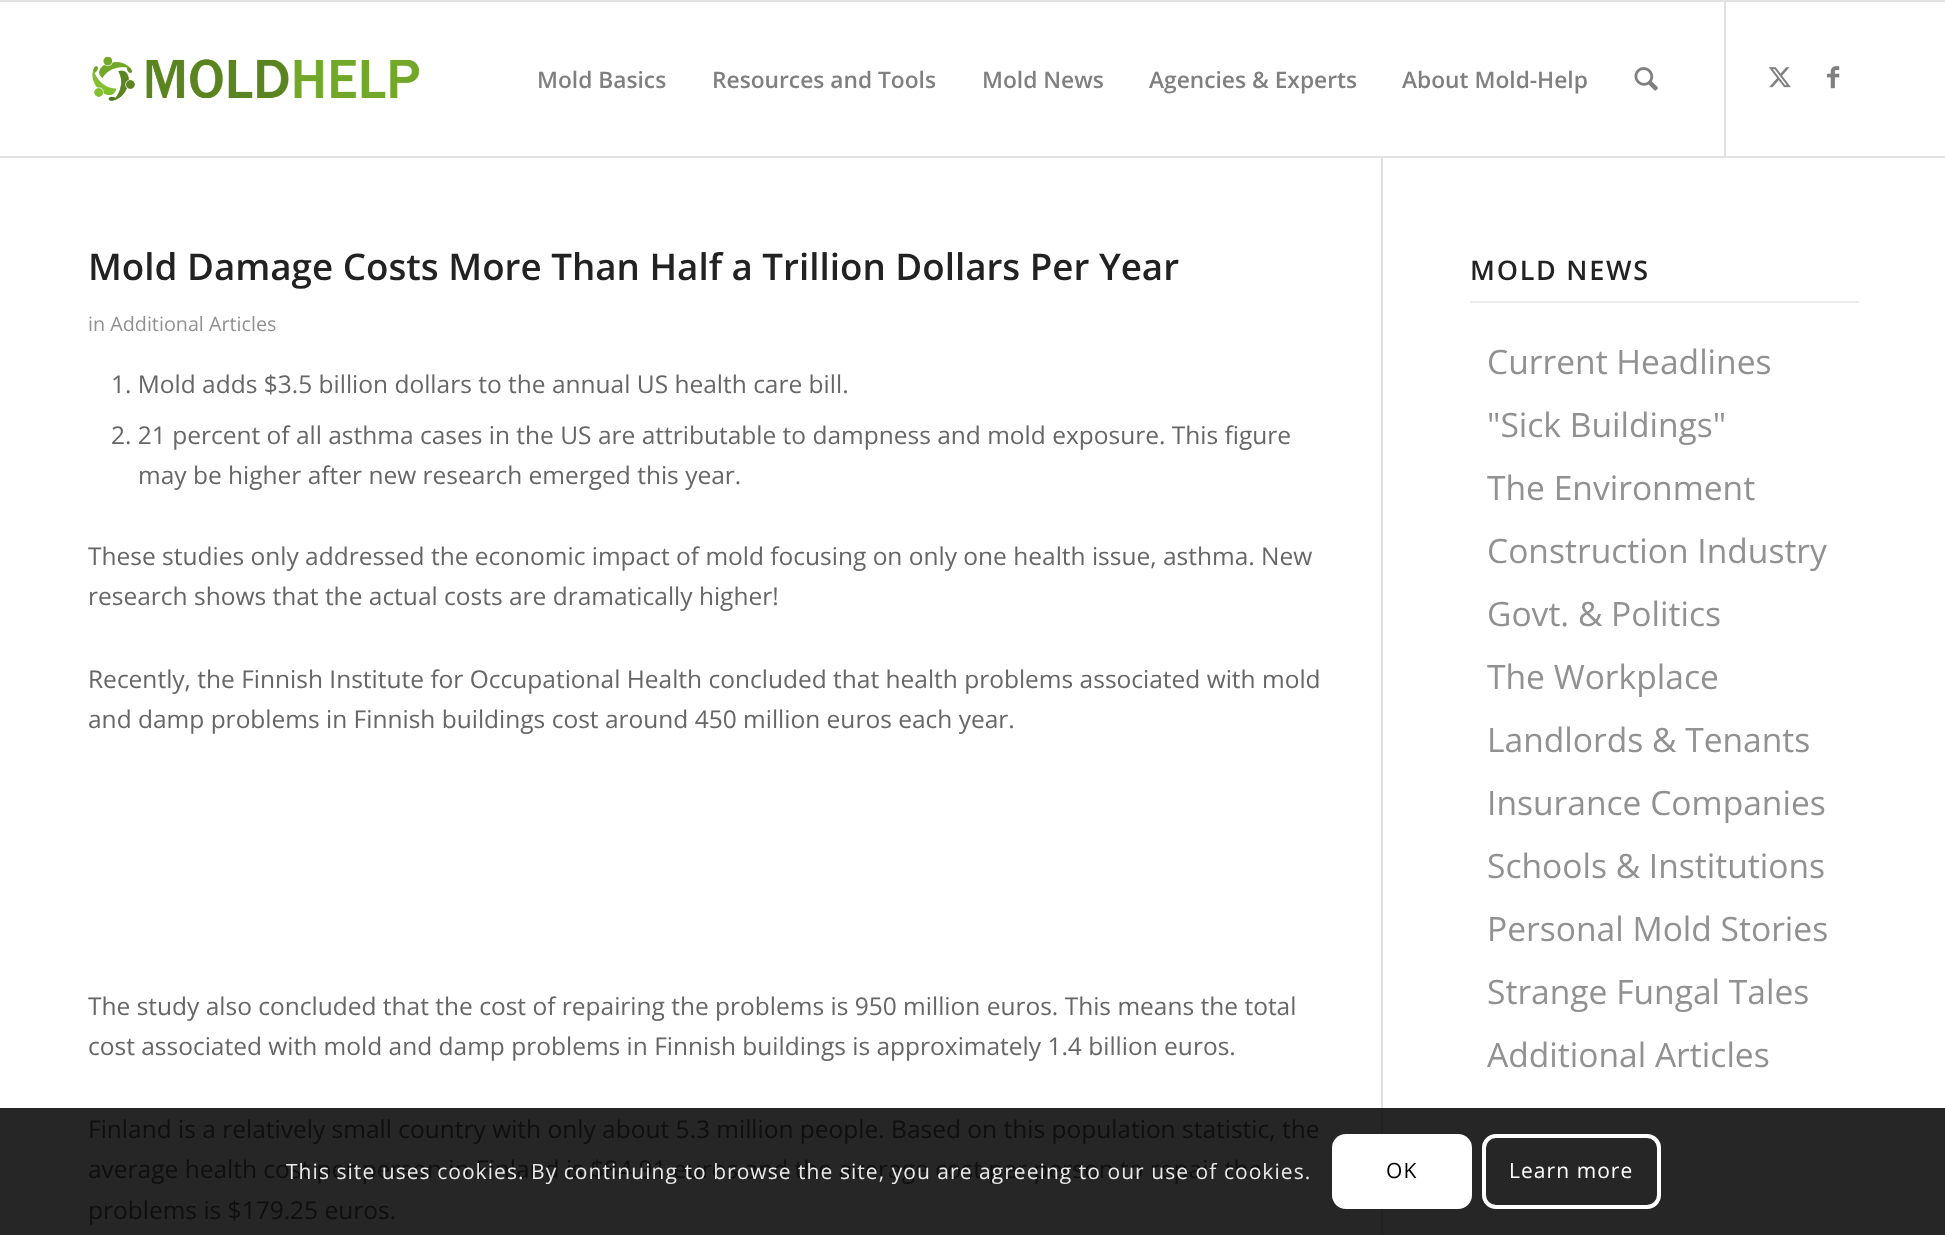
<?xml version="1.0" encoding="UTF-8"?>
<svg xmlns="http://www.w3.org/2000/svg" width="1945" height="1235">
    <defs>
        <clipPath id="clip1"><rect x="88" y="243" width="1293" height="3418"/></clipPath>
    </defs>
    <rect width="100%" height="100%" fill="#FFFFFF"/>
    <rect x="0" y="1108" width="1945" height="127" fill="#262626"/>
    <rect x="0" y="0" width="1945" height="2" fill="#E1E1E1"/>
    <rect x="1381" y="156" width="2" height="952" fill="#E1E1E1"/>
    <rect x="0" y="156" width="1945" height="2" fill="#E1E1E1"/>
    <image x="92" y="56" width="327" height="45" href="img_01.png"/>
    <rect x="1724" y="2" width="2" height="154" fill="#E1E1E1"/>
    <text x="537" y="88" font-family="Open Sans" font-size="22.75" font-weight="600" fill="#808080">Mold Basics</text>
    <text x="712" y="88" font-family="Open Sans" font-size="22.75" font-weight="600" fill="#808080">Resources and Tools</text>
    <text x="982" y="88" font-family="Open Sans" font-size="22.75" font-weight="600" fill="#808080">Mold News</text>
    <text x="1149" y="88" font-family="Open Sans" font-size="22.75" font-weight="600" fill="#808080">Agencies &amp; Experts</text>
    <text x="1402" y="88" font-family="Open Sans" font-size="22.75" font-weight="600" fill="#808080">About Mold-Help</text>
    <image x="1634" y="67" width="24" height="24" href="img_02.png"/>
    <image x="1768" y="67" width="23" height="21" href="img_03.png"/>
    <image x="1827" y="66" width="13" height="23" href="img_04.png"/>
    <rect x="1381" y="1108" width="2" height="127" fill="#222222"/>
    <text x="88" y="280" font-family="Open Sans" font-size="36.75" font-weight="600" fill="#222222">Mold Damage Costs More Than Half a Trillion Dollars Per Year</text>
    <text x="88" y="331" font-family="Open Sans" font-size="19.75" fill="#919191">in Additional Articles</text>
    <text x="111" y="393" font-family="Open Sans" font-size="24.5" fill="#666666">1. Mold adds $3.5 billion dollars to the annual US health care bill.</text>
    <text x="111" y="444" font-family="Open Sans" font-size="24.5" fill="#666666">2. 21 percent of all asthma cases in the US are attributable to dampness and mold exposure. This figure</text>
    <text x="138" y="484" font-family="Open Sans" font-size="24.5" fill="#666666">may be higher after new research emerged this year.</text>
    <g clip-path="url(#clip1)">
        <text x="88" y="565" font-family="Open Sans" font-size="24.5" fill="#666666">These studies only addressed the economic impact of mold focusing on only one health issue, asthma. New</text>
    </g>
    <text x="88" y="605" font-family="Open Sans" font-size="24.5" fill="#666666">research shows that the actual costs are dramatically higher!</text>
    <text font-family="Open Sans" font-size="24.5" fill="#666666">
        <tspan x="88" y="688">Recently, the Finnish Institute for Occupational Health concluded that health problems associated with mold</tspan>
        <tspan x="88" y="728">and damp problems in Finnish buildings cost around 450 million euros each year.</tspan>
    </text>
    <g clip-path="url(#clip1)">
        <text x="88" y="1015" font-family="Open Sans" font-size="24.5" fill="#666666">The study also concluded that the cost of repairing the problems is 950 million euros. This means the total</text>
    </g>
    <text x="88" y="1055" font-family="Open Sans" font-size="24.5" fill="#666666">cost associated with mold and damp problems in Finnish buildings is approximately 1.4 billion euros.</text>
    <text font-family="Open Sans" font-size="24.5" fill="#0F0F0F">
        <tspan x="88" y="1138">Finland is a relatively small country with only about 5.3 million people. Based on this population statistic, the</tspan>
        <tspan x="88" y="1178">average health cost per person in Finland is $84.91 euros and the average cost per person to repair the</tspan>
        <tspan x="88" y="1219">problems is $179.25 euros.</tspan>
    </text>
    <rect x="1470" y="301" width="389" height="2" fill="#EEEEEE"/>
    <text x="1470" y="280" font-family="Open Sans" font-size="27" font-weight="600" letter-spacing="1.75" fill="#222222">MOLD NEWS</text>
    <text font-family="Open Sans" font-size="33.6" fill="#919191">
        <tspan x="1487" y="374">Current Headlines</tspan>
        <tspan x="1487" y="437">"Sick Buildings"</tspan>
        <tspan x="1487" y="500">The Environment</tspan>
        <tspan x="1487" y="563">Construction Industry</tspan>
        <tspan x="1487" y="626">Govt. &amp; Politics</tspan>
        <tspan x="1487" y="689">The Workplace</tspan>
        <tspan x="1487" y="752">Landlords &amp; Tenants</tspan>
        <tspan x="1487" y="815">Insurance Companies</tspan>
        <tspan x="1487" y="878">Schools &amp; Institutions</tspan>
        <tspan x="1487" y="941">Personal Mold Stories</tspan>
        <tspan x="1487" y="1004">Strange Fungal Tales</tspan>
        <tspan x="1487" y="1067">Additional Articles</tspan>
    </text>
    <text x="286" y="1179" font-family="Open Sans" font-size="21" letter-spacing="1.05" fill="#E9E9E9">This site uses cookies. By continuing to browse the site, you are agreeing to our use of cookies.</text>
    <rect x="1332" y="1134" width="140" height="75" rx="14" fill="#FFFFFF"/>
    <text x="1386" y="1178" font-family="Open Sans" font-size="21" letter-spacing="1.05" fill="#000000">OK</text>
    <rect x="1484" y="1136" width="175" height="71" rx="12" fill="none" stroke="#FFFFFF" stroke-width="4"/>
    <text x="1509" y="1178" font-family="Open Sans" font-size="21" letter-spacing="1.05" fill="#FFFFFF">Learn more</text>
</svg>
